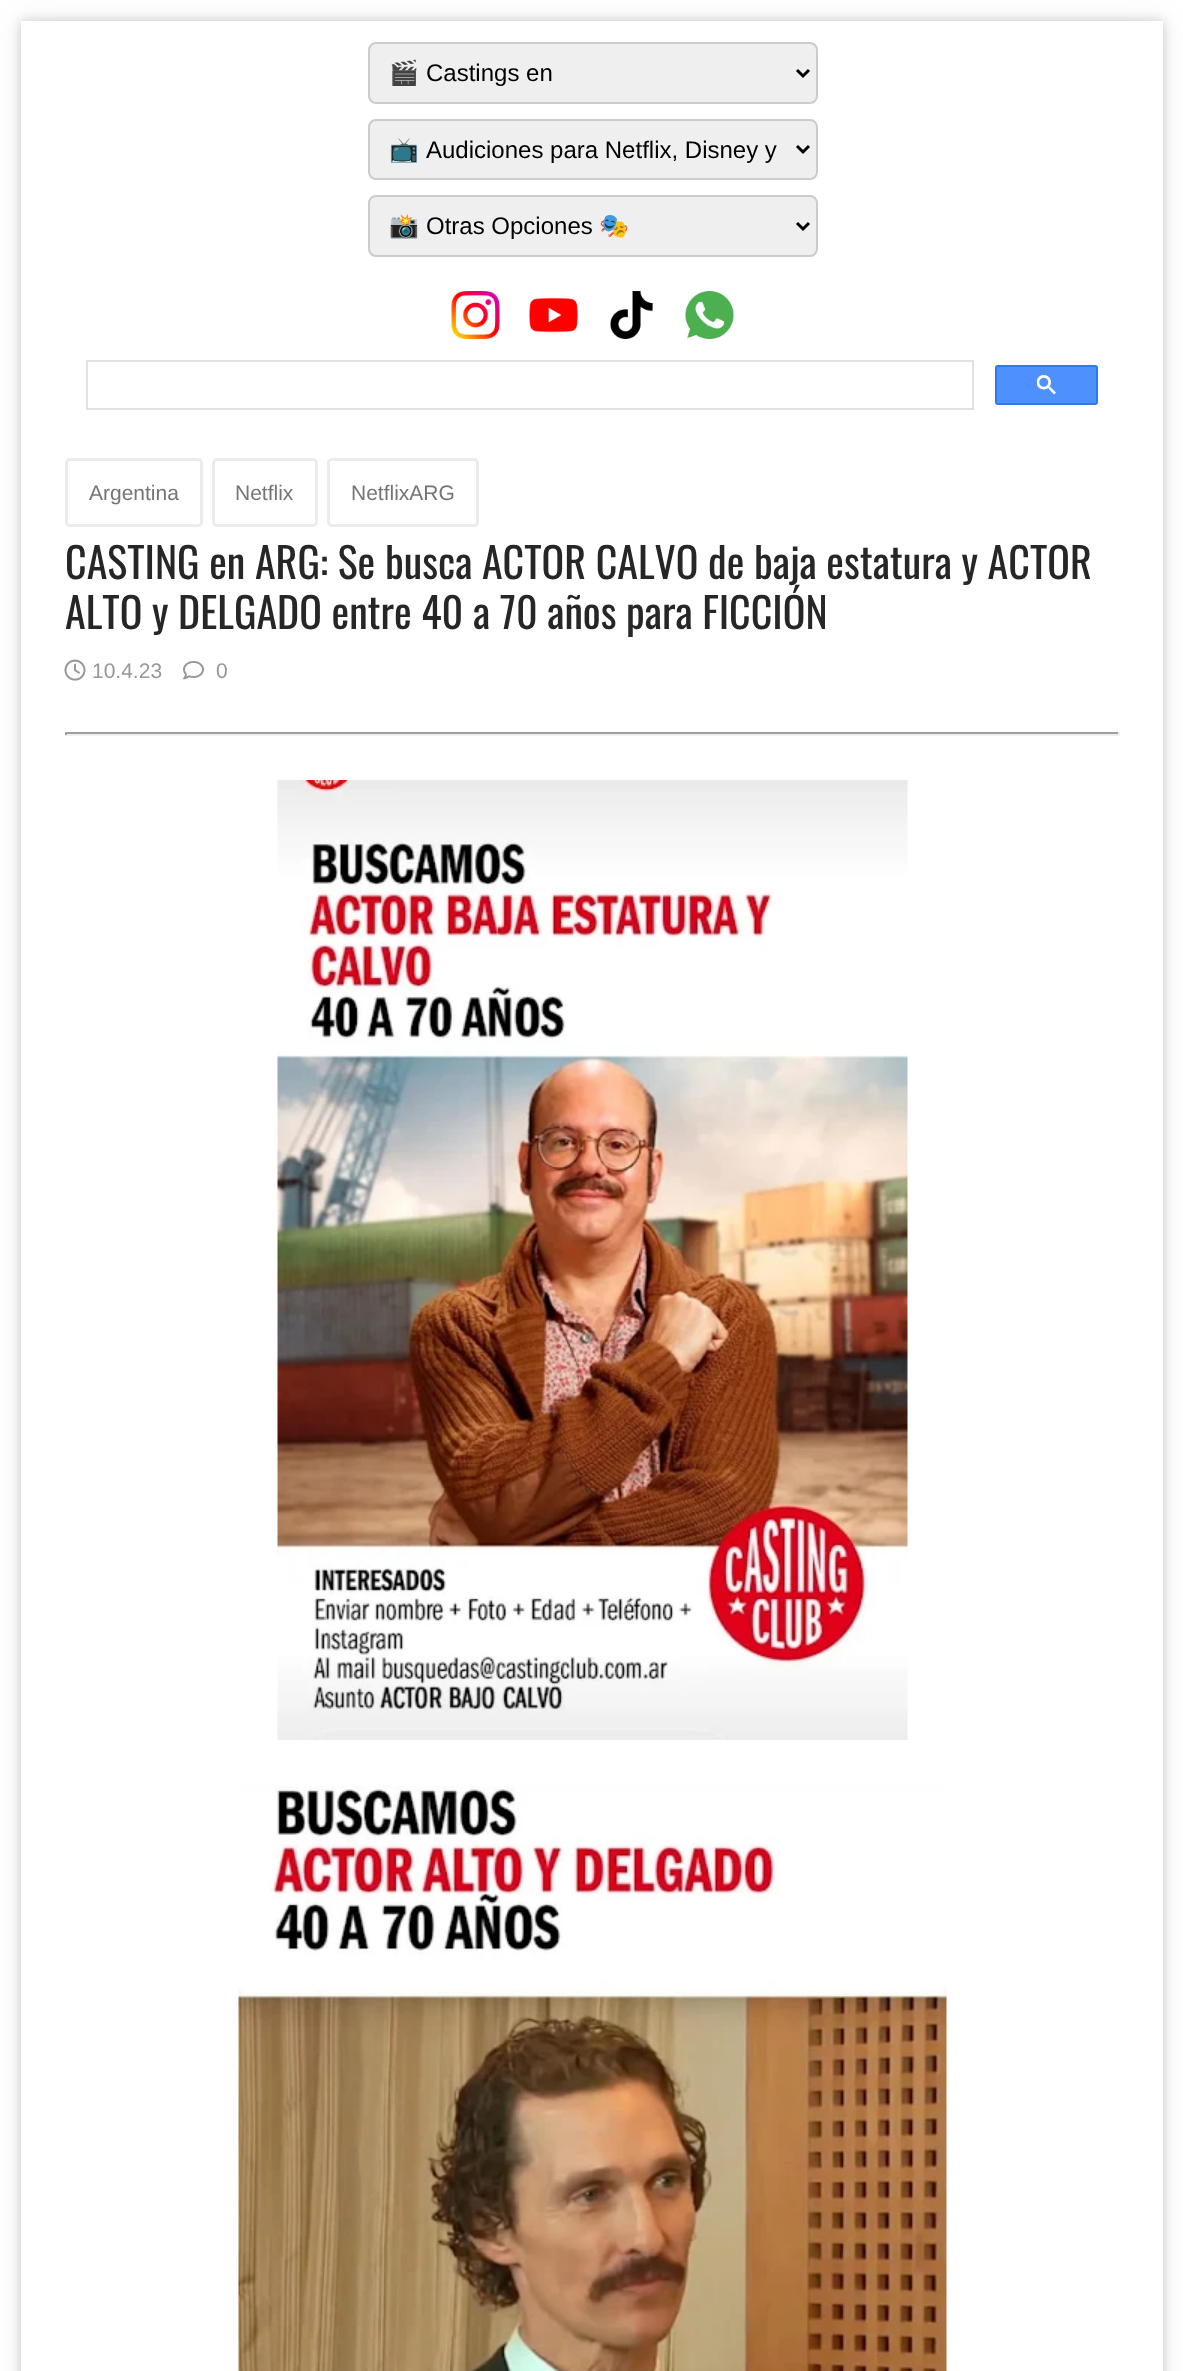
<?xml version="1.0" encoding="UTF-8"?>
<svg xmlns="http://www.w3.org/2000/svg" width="1183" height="2371">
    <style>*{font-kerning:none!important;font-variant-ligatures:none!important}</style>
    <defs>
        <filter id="blur1" x="-50%" y="-200%" width="200%" height="500%"><feGaussianBlur stdDeviation="19"/></filter>
        <filter id="blur2" x="-50%" y="-200%" width="200%" height="500%"><feGaussianBlur stdDeviation="6"/></filter>
        <clipPath id="clip1"><rect x="390" y="59" width="387" height="28"/></clipPath>
        <clipPath id="clip2"><rect x="390" y="135" width="387" height="29"/></clipPath>
        <clipPath id="clip3"><rect x="390" y="212" width="387" height="28"/></clipPath>
    </defs>
    <rect width="100%" height="100%" fill="#FFFFFF"/>
    <rect x="21" y="21" width="1142" height="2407" fill="#000000" fill-opacity="0.05" filter="url(#blur1)"/>
    <rect x="21" y="21" width="1142" height="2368" fill="#000000" fill-opacity="0.2" filter="url(#blur2)"/>
    <rect x="21" y="21" width="1142" height="2350" fill="#FFFFFF"/>
    <rect x="369" y="43" width="448" height="60" rx="7" fill="#EFEFEF" stroke="#CCCCCC" stroke-width="2"/>
    <path d="M 797 70 L 803 76 L 809 70" fill="none" stroke="#000000" stroke-width="3"/>
    <g clip-path="url(#clip1)">
        <text x="389" y="81" font-family="Noto Color Emoji" font-size="24" fill="#000000">🎬</text>
    </g>
    <text x="426" y="81" font-family="Liberation Sans" font-size="24" fill="#000000">Castings en</text>
    <rect x="369" y="120" width="448" height="59" rx="7" fill="#EFEFEF" stroke="#CCCCCC" stroke-width="2"/>
    <path d="M 797 146 L 803 152 L 809 146" fill="none" stroke="#000000" stroke-width="3"/>
    <g clip-path="url(#clip2)">
        <text x="389" y="158" font-family="Noto Color Emoji" font-size="24" fill="#000000">📺</text>
    </g>
    <text x="426" y="158" font-family="Liberation Sans" font-size="24" fill="#000000">Audiciones para Netflix, Disney y</text>
    <rect x="369" y="196" width="448" height="60" rx="7" fill="#EFEFEF" stroke="#CCCCCC" stroke-width="2"/>
    <path d="M 797 223 L 803 229 L 809 223" fill="none" stroke="#000000" stroke-width="3"/>
    <g clip-path="url(#clip3)">
        <text x="389" y="234" font-family="Noto Color Emoji" font-size="24" fill="#000000">📸</text>
    </g>
    <text x="426" y="234" font-family="Liberation Sans" font-size="24" fill="#000000">Otras Opciones</text>
    <text x="599" y="234" font-family="Noto Color Emoji" font-size="24" fill="#000000">🎭</text>
    <image x="451" y="291" width="49" height="48" href="img_01.png"/>
    <image x="529" y="297" width="49" height="36" href="img_02.png"/>
    <image x="610" y="291" width="43" height="48" href="img_03.png"/>
    <image x="685" y="291" width="49" height="48" href="img_04.png"/>
    <rect x="87" y="361" width="886" height="48" fill="none" stroke="#DFE1E5" stroke-width="2"/>
    <rect x="996" y="366" width="101" height="38" rx="2" fill="#4D90FE" stroke="#3079ED" stroke-width="2"/>
    <image x="1037" y="375" width="19" height="20" href="img_05.png"/>
    <rect x="66.5" y="459.5" width="135" height="66" rx="3.5" fill="none" stroke="#ECECEC" stroke-width="3"/>
    <text x="89" y="500" font-family="Liberation Sans" font-size="21" fill="#757575">Argentina</text>
    <rect x="213.5" y="459.5" width="103" height="66" rx="3.5" fill="none" stroke="#ECECEC" stroke-width="3"/>
    <text x="235" y="500" font-family="Liberation Sans" font-size="21" fill="#757575">Netflix</text>
    <rect x="328.5" y="459.5" width="149" height="66" rx="3.5" fill="none" stroke="#ECECEC" stroke-width="3"/>
    <text x="351" y="500" font-family="Liberation Sans" font-size="21" fill="#757575">NetflixARG</text>
    <text font-family="Oswald" font-size="42" fill="#262626">
        <tspan x="65" y="579">CASTING en ARG: Se busca ACTOR CALVO de baja estatura y ACTOR</tspan>
        <tspan x="65" y="629">ALTO y DELGADO entre 40 a 70 años para FICCIÓN</tspan>
    </text>
    <image x="64" y="659" width="22" height="22" href="img_06.png"/>
    <text x="92" y="678" font-family="Liberation Sans" font-size="21" fill="#979797">10.4.23</text>
    <image x="183" y="661" width="21" height="19" href="img_07.png"/>
    <text x="216" y="678" font-family="Liberation Sans" font-size="21" fill="#979797">0</text>
    <rect x="65" y="732" width="1054" height="2" fill="#9F9F9F"/>
    <rect x="1118" y="732" width="2" height="3" fill="#EEEEEE"/>
    <rect x="65" y="734" width="1054" height="2" fill="#EEEEEE"/>
    <rect x="65" y="732" width="2" height="3" fill="#9F9F9F"/>
    <image x="277" y="780" width="631" height="960" href="img_08.png"/>
    <image x="238" y="1786" width="709" height="585" href="img_09.png"/>
</svg>
